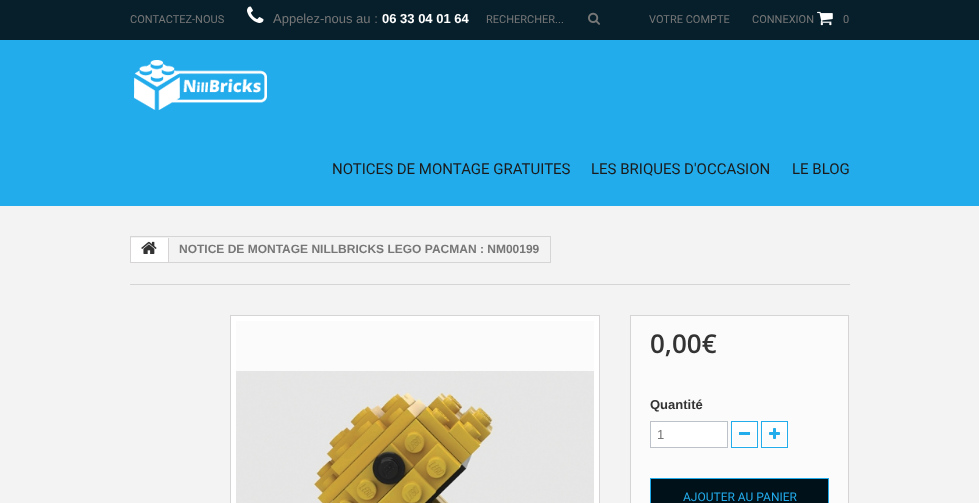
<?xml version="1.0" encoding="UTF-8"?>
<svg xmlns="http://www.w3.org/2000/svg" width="979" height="503">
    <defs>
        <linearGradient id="g1" gradientUnits="userSpaceOnUse" x1="745" y1="423" x2="745" y2="446"><stop offset="0" stop-color="#FFFFFF"/><stop offset="1" stop-color="#FBFBFB"/></linearGradient>
        <linearGradient id="g2" gradientUnits="userSpaceOnUse" x1="775" y1="423" x2="775" y2="446"><stop offset="0" stop-color="#FFFFFF"/><stop offset="1" stop-color="#FBFBFB"/></linearGradient>
    </defs>
    <rect width="100%" height="100%" fill="#F3F3F3"/>
    <rect x="0" y="40" width="979" height="166" fill="#23ACEC"/>
    <rect x="0" y="0" width="979" height="40" fill="#061F2B"/>
    <text x="130" y="23" font-family="Roboto" font-size="11" fill="#777777">CONTACTEZ-NOUS</text>
    <image x="247" y="6" width="17" height="17" href="img_01.png"/>
    <text x="273" y="23" font-family="Liberation Sans" font-size="13" fill="#777777">Appelez-nous au :</text>
    <text x="382" y="23" font-family="Liberation Sans" font-size="13" font-weight="700" fill="#FFFFFF">06 33 04 01 64</text>
    <text x="486" y="23" font-family="Roboto" font-size="11" fill="#777777">RECHERCHER...</text>
    <image x="588" y="12" width="12" height="13" href="img_02.png"/>
    <text x="649" y="23" font-family="Roboto" font-size="11" fill="#777777">VOTRE COMPTE</text>
    <text x="752" y="23" font-family="Roboto" font-size="11" fill="#777777">CONNEXION</text>
    <image x="817" y="11" width="16" height="15" href="img_03.png"/>
    <text x="843" y="23" font-family="Roboto" font-size="11" fill="#777777">0</text>
    <image x="134" y="60" width="133" height="50" href="img_04.png"/>
    <text x="332" y="174" font-family="Roboto" font-size="15" fill="#1B1B1B">NOTICES DE MONTAGE GRATUITES</text>
    <text x="591" y="174" font-family="Roboto" font-size="15" fill="#1B1B1B">LES BRIQUES D'OCCASION</text>
    <text x="792" y="174" font-family="Roboto" font-size="15" fill="#1B1B1B">LE BLOG</text>
    <rect x="130.5" y="236.5" width="420" height="26" fill="none" stroke="#D6D4D4"/>
    <rect x="131" y="238" width="37" height="24" fill="#FFFFFF"/>
    <rect x="168" y="238" width="1" height="24" fill="#D6D4D4"/>
    <image x="141" y="241" width="16" height="13" href="img_05.png"/>
    <text x="179" y="253" font-family="Liberation Sans" font-size="12" font-weight="700" fill="#777777">NOTICE DE MONTAGE NILLBRICKS LEGO PACMAN : NM00199</text>
    <rect x="130" y="284" width="720" height="1" fill="#D6D4D4"/>
    <rect x="230.5" y="315.5" width="369" height="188" fill="#FFFFFF" stroke="#D6D4D4"/>
    <rect x="236" y="321" width="358" height="50" fill="#FBFBFB"/>
    <image x="236" y="371" width="358" height="132" href="img_06.png"/>
    <rect x="630.5" y="315.5" width="218" height="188" fill="#FBFBFB" stroke="#D6D4D4"/>
    <text x="650" y="353" font-family="Open Sans" font-size="26" font-weight="600" fill="#333333">0,00€</text>
    <text x="650" y="409" font-family="Liberation Sans" font-size="13" font-weight="700" fill="#333333">Quantité</text>
    <rect x="650.5" y="421.5" width="77" height="26" fill="#FFFFFF" stroke="#BDC2C9"/>
    <text x="657" y="439" font-family="Liberation Sans" font-size="13" fill="#777777">1</text>
    <rect x="731.5" y="421.5" width="26" height="26" fill="none" stroke="#23ACEC"/>
    <rect x="733" y="423" width="23" height="9" fill="url(#g1)"/>
    <rect x="732.5" y="422.5" width="24" height="24" fill="none" stroke="#FFFFFF"/>
    <rect x="739" y="432" width="11" height="3" fill="#23ACEC"/>
    <rect x="761.5" y="421.5" width="26" height="26" fill="none" stroke="#23ACEC"/>
    <rect x="763" y="423" width="23" height="9" fill="url(#g2)"/>
    <rect x="762.5" y="422.5" width="24" height="24" fill="none" stroke="#FFFFFF"/>
    <image x="769" y="428" width="11" height="11" href="img_07.png"/>
    <rect x="650.5" y="478.5" width="178" height="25" fill="#011119" stroke="#23ACEC"/>
    <text x="683" y="501" font-family="Roboto" font-size="12" fill="#23ACEC">AJOUTER AU PANIER</text>
</svg>
